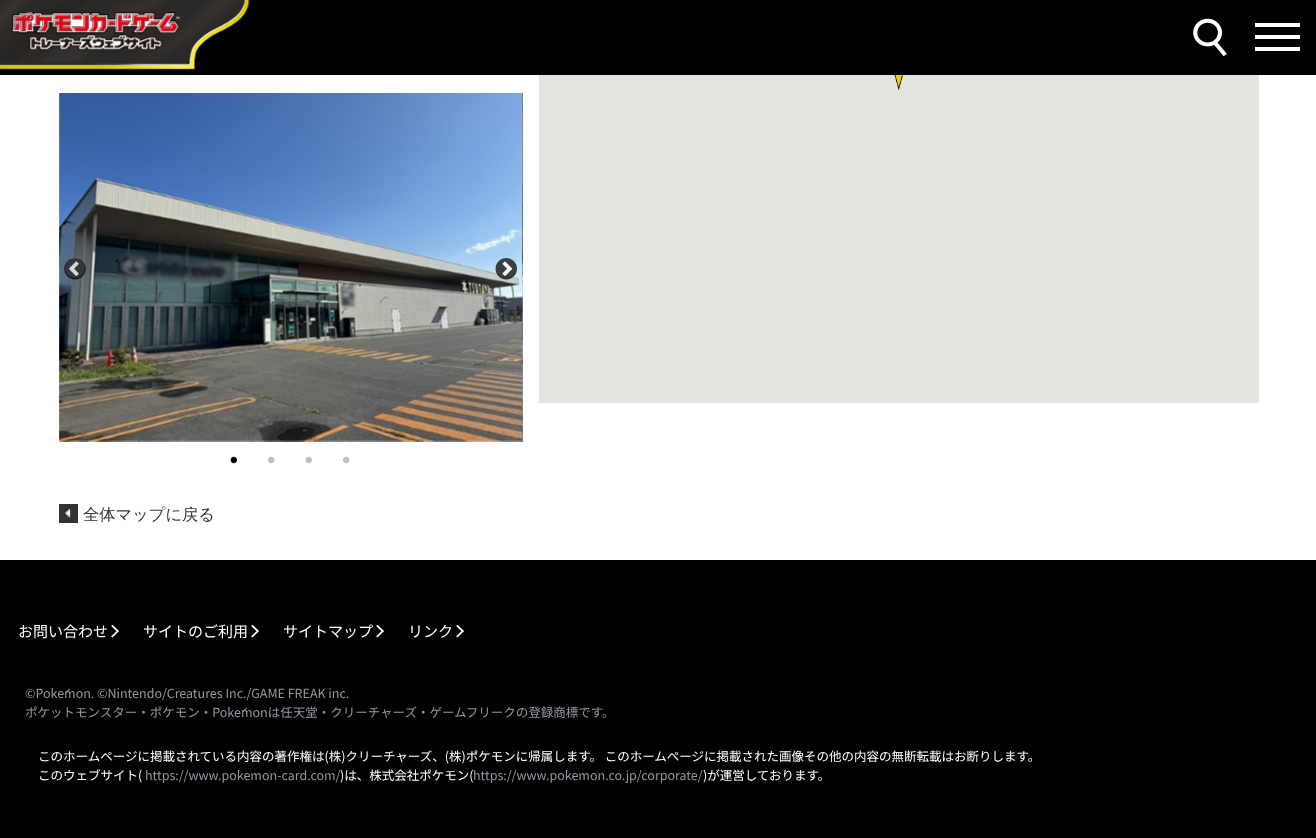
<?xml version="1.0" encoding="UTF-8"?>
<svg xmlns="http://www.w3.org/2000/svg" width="1316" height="838">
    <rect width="100%" height="100%" fill="#000000"/>
    <image x="0" y="0" width="250" height="70" href="img_01.png"/>
    <image x="11" y="12" width="170" height="39" href="img_02.png"/>
    <image x="1193" y="18" width="34" height="39" href="img_03.png"/>
    <path d="M 1255 47 H 1300 V 51 H 1255 Z M 1255 35 H 1300 V 39 H 1255 Z M 1255 23 H 1300 V 27 H 1255 Z" fill="#FFFFFF"/>
    <rect x="0" y="75" width="1316" height="485" fill="#FFFFFF"/>
    <rect x="539" y="75" width="720" height="328" fill="#E5E3DF"/>
    <image x="894" y="75" width="9" height="15" href="img_04.png"/>
    <image x="59" y="93" width="464" height="349" href="img_05.png"/>
    <image x="522" y="93" width="1" height="349" href="img_06.png"/>
    <circle cx="75" cy="268" r="10" fill="#FFFFFF" fill-opacity="0.75"/>
    <image x="64" y="258" width="22" height="22" href="img_07.png"/>
    <circle cx="506" cy="268" r="10" fill="#FFFFFF" fill-opacity="0.75"/>
    <image x="495" y="258" width="22" height="22" href="img_08.png"/>
    <image x="230" y="456" width="7" height="8" href="img_09.png"/>
    <image x="268" y="456" width="7" height="8" href="img_10.png"/>
    <image x="305" y="456" width="7" height="8" href="img_11.png"/>
    <image x="343" y="456" width="7" height="8" href="img_10.png"/>
    <rect x="59" y="504" width="19" height="19" fill="#333333"/>
    <image x="64" y="508" width="7" height="10" href="img_12.png"/>
    <text x="83" y="520" font-family="WenQuanYi Zen Hei" font-size="16.25" font-weight="500" fill="#333333">全体マップに戻る</text>
    <text x="18" y="637" font-family="Noto Sans JP" font-size="15" fill="#FFFFFF">お問い合わせ</text>
    <image x="111" y="624" width="8" height="14" href="img_13.png"/>
    <text x="143" y="637" font-family="Noto Sans JP" font-size="15" fill="#FFFFFF">サイトのご利用</text>
    <image x="251" y="624" width="8" height="14" href="img_13.png"/>
    <text x="283" y="637" font-family="Noto Sans JP" font-size="15" fill="#FFFFFF">サイトマップ</text>
    <image x="376" y="624" width="8" height="14" href="img_13.png"/>
    <text x="408" y="637" font-family="Noto Sans JP" font-size="15" fill="#FFFFFF">リンク</text>
    <image x="456" y="624" width="8" height="14" href="img_13.png"/>
    <text font-family="Noto Sans JP" font-size="12.5" fill="#9896A5">
        <tspan x="25" y="698">©Pokémon. ©Nintendo/Creatures Inc./GAME FREAK inc.</tspan>
        <tspan x="25" y="717">ポケットモンスター・ポケモン・Pokémonは任天堂・クリーチャーズ・ゲームフリークの登録商標です。</tspan>
    </text>
    <text font-family="Noto Sans JP" font-size="12.5" fill="#FFFFFF">
        <tspan x="38" y="761">このホームページに掲載されている内容の著作権は(株)クリーチャーズ、(株)ポケモンに帰属します。 このホームページに掲載された画像その他の内容の無断転載はお断りします。</tspan>
        <tspan x="38" y="780">このウェブサイト(</tspan>
    </text>
    <text x="145" y="780" font-family="Noto Sans JP" font-size="12.5" fill="#9896A5">https://www.pokemon-card.com/</text>
    <text x="340" y="780" font-family="Noto Sans JP" font-size="12.5" fill="#FFFFFF">)は、株式会社ポケモン(</text>
    <text x="473" y="780" font-family="Noto Sans JP" font-size="12.5" fill="#9896A5">https://www.pokemon.co.jp/corporate/</text>
    <text x="703" y="780" font-family="Noto Sans JP" font-size="12.5" fill="#FFFFFF">)が運営しております。</text>
</svg>
